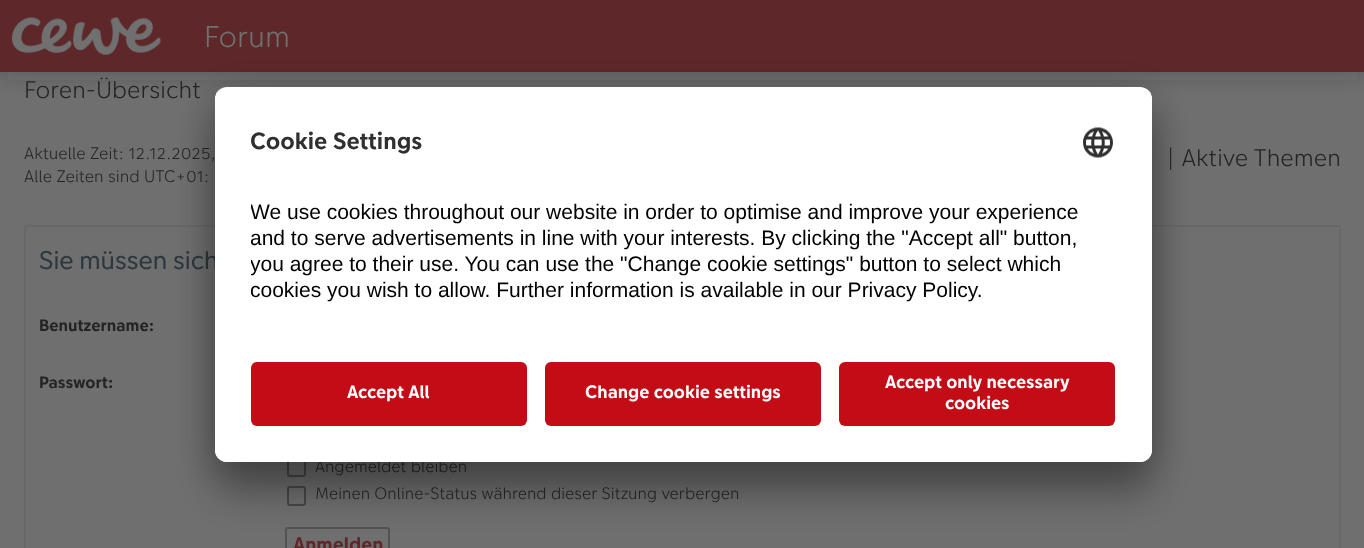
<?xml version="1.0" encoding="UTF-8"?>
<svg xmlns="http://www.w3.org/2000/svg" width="1364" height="548">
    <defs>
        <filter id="blur1" x="-50%" y="-200%" width="200%" height="500%"><feGaussianBlur stdDeviation="12"/></filter>
        <filter id="blur2" x="-50%" y="-200%" width="200%" height="500%"><feGaussianBlur stdDeviation="21"/></filter>
        <filter id="blur3" x="-50%" y="-200%" width="200%" height="500%"><feGaussianBlur stdDeviation="19.5"/></filter>
        <clipPath id="clip1"><rect x="215" y="87" width="937" height="375" rx="12"/></clipPath>
        <clipPath id="clip2"><path d="M 227 87 H 1140 C 1146.5 87 1152 92.5 1152 99 V 350 H 215 V 99 C 215 92.5 220.5 87 227 87 Z"/></clipPath>
        <clipPath id="clip3"><rect x="251" y="173" width="865" height="159"/></clipPath>
    </defs>
    <rect width="100%" height="100%" fill="#6F6F6F"/>
    <rect x="0" y="0" width="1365" height="72" fill="#242424" fill-opacity="0.33" filter="url(#blur1)"/>
    <rect x="0" y="0" width="1364" height="72" fill="#5E272A"/>
    <image x="12" y="17" width="149" height="39" href="img_01.png"/>
    <text x="204" y="47" font-family="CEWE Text" font-size="30" font-weight="300" fill="#707070">Forum</text>
    <text x="24" y="98" font-family="CEWE Text" font-size="24" font-weight="300" fill="#242424">Foren-Übersicht</text>
    <text font-family="CEWE Text" font-size="16.75" font-weight="300" fill="#242424">
        <tspan x="24" y="159">Aktuelle Zeit: 12.12.2025,</tspan>
        <tspan x="24" y="182">Alle Zeiten sind UTC+01:</tspan>
    </text>
    <text x="1166" y="166" font-family="CEWE Text" font-size="24" font-weight="300" fill="#242424">| Aktive Themen</text>
    <rect x="25" y="226" width="1315" height="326" rx="2" fill="none" stroke="#686868" stroke-width="2"/>
    <text x="39" y="269" font-family="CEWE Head" font-size="25.5" fill="#2D373E">Sie müssen sich</text>
    <text x="39" y="331" font-family="CEWE Text" font-size="16.5" font-weight="700" fill="#242424">Benutzername:</text>
    <text x="39" y="388" font-family="CEWE Text" font-size="16.5" font-weight="700" fill="#242424">Passwort:</text>
    <rect x="288" y="459" width="17" height="17" rx="2" fill="none" stroke="#474747" stroke-width="2"/>
    <text x="315" y="472" font-family="CEWE Text" font-size="16.5" font-weight="300" fill="#242424">Angemeldet bleiben</text>
    <rect x="288" y="487" width="17" height="18" rx="2" fill="none" stroke="#474747" stroke-width="2"/>
    <text x="315" y="499" font-family="CEWE Text" font-size="16.5" font-weight="300" fill="#242424">Meinen Online-Status während dieser Sitzung verbergen</text>
    <rect x="286" y="528" width="103" height="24" rx="2" fill="none" stroke="#535353" stroke-width="2"/>
    <text x="293" y="551" font-family="CEWE Text" font-size="19.5" font-weight="700" fill="#5E272A">Anmelden</text>
    <rect x="215" y="117" width="937" height="375" rx="12" fill="#000000" fill-opacity="0.3" filter="url(#blur2)"/>
    <rect x="215" y="95" width="937" height="375" rx="12" fill="#000000" fill-opacity="0.22" filter="url(#blur3)"/>
    <rect x="215" y="87" width="937" height="375" rx="12" fill="#FFFFFF"/>
    <g clip-path="url(#clip1)">
        <g clip-path="url(#clip2)">
            <rect x="215" y="89" width="937" height="261" fill="#FFFFFF"/>
        </g>
    </g>
    <text x="250" y="149" font-family="CEWE Text" font-size="23.5" font-weight="700" fill="#303030">Cookie Settings</text>
    <image x="1083" y="127" width="30" height="31" href="img_02.png"/>
    <g clip-path="url(#clip3)">
        <text font-family="Liberation Sans" font-size="21" fill="#000000">
            <tspan x="250" y="219">We use cookies throughout our website in order to optimise and improve your experience</tspan>
            <tspan x="250" y="245">and to serve advertisements in line with your interests. By clicking the "Accept all" button,</tspan>
            <tspan x="250" y="271">you agree to their use. You can use the "Change cookie settings" button to select which</tspan>
            <tspan x="250" y="297">cookies you wish to allow. Further information is available in our Privacy Policy.</tspan>
        </text>
    </g>
    <path d="M 215 350 H 1152 V 450 C 1152 456.5 1146.5 462 1140 462 H 227 C 220.5 462 215 456.5 215 450 Z" fill="#FFFFFF"/>
    <rect x="251" y="362" width="276" height="64" rx="6" fill="#C30C15"/>
    <text x="347" y="398" font-family="CEWE Text" font-size="18" font-weight="700" fill="#FFFFFF">Accept All</text>
    <rect x="545" y="362" width="276" height="64" rx="6" fill="#C30C15"/>
    <text x="585" y="398" font-family="CEWE Text" font-size="18" font-weight="700" fill="#FFFFFF">Change cookie settings</text>
    <rect x="839" y="362" width="276" height="64" rx="6" fill="#C30C15"/>
    <text x="885" y="388" font-family="CEWE Text" font-size="18" font-weight="700" fill="#FFFFFF">Accept only necessary</text>
    <text x="945" y="409" font-family="CEWE Text" font-size="18" font-weight="700" fill="#FFFFFF">cookies</text>
</svg>
